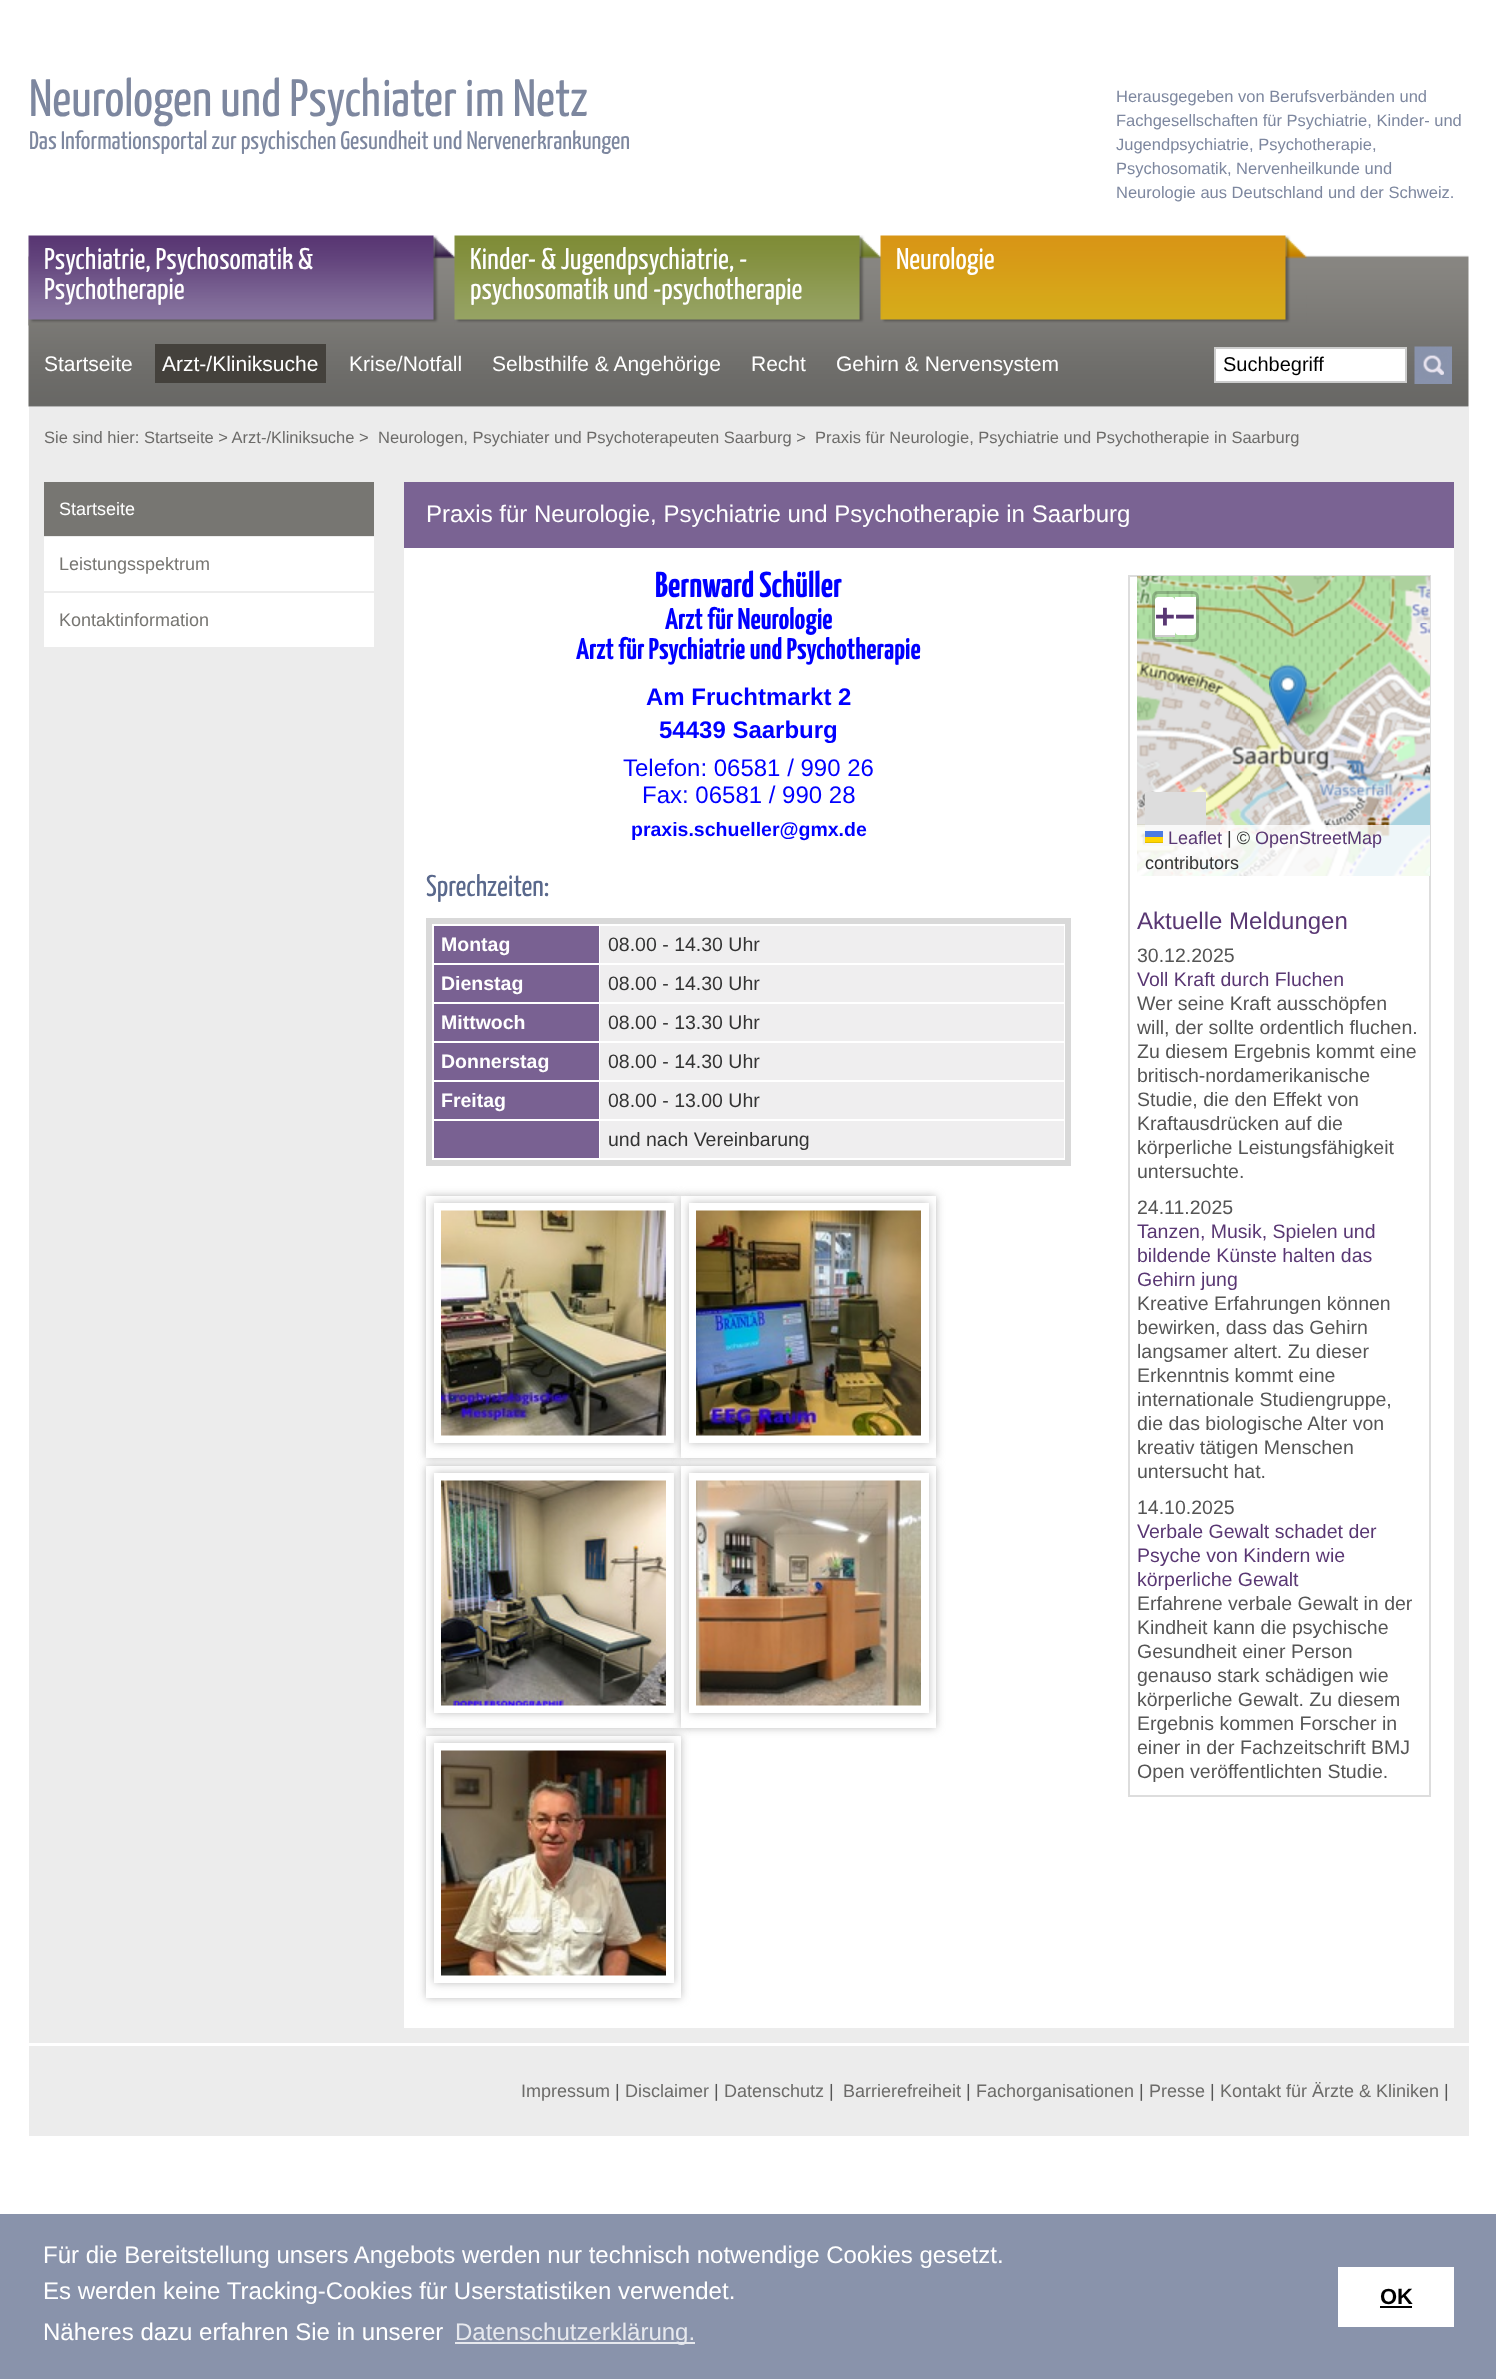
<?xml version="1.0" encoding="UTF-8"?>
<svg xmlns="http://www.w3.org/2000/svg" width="1496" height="2379">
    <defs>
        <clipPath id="clip1"><path d="M 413 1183 H 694 V 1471 H 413 Z M 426 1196 H 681 V 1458 H 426 Z" clip-rule="evenodd"/></clipPath>
        <filter id="blur1" x="-50%" y="-200%" width="200%" height="500%"><feGaussianBlur stdDeviation="4"/></filter>
        <clipPath id="clip2"><path d="M 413 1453 H 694 V 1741 H 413 Z M 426 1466 H 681 V 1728 H 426 Z" clip-rule="evenodd"/></clipPath>
        <clipPath id="clip3"><path d="M 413 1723 H 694 V 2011 H 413 Z M 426 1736 H 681 V 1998 H 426 Z" clip-rule="evenodd"/></clipPath>
    </defs>
    <rect width="100%" height="100%" fill="#FFFFFF"/>
    <text x="29" y="116" font-family="Yanone Kaffeesatz" font-size="52.5" font-weight="200" fill="#7D879F">Neurologen und Psychiater im Netz</text>
    <text x="29" y="149" font-family="Yanone Kaffeesatz" font-size="25.5" font-weight="200" fill="#7D879F">Das Informationsportal zur psychischen Gesundheit und Nervenerkrankungen</text>
    <text font-family="Liberation Sans" font-size="16.5" fill="#7D879F">
        <tspan x="1116" y="102">Herausgegeben von Berufsverbänden und</tspan>
        <tspan x="1116" y="126">Fachgesellschaften für Psychiatrie, Kinder- und</tspan>
        <tspan x="1116" y="150">Jugendpsychiatrie, Psychotherapie,</tspan>
        <tspan x="1116" y="174">Psychosomatik, Nervenheilkunde und</tspan>
        <tspan x="1116" y="198">Neurologie aus Deutschland und der Schweiz.</tspan>
    </text>
    <image x="28" y="255" width="1441" height="152" href="img_01.png"/>
    <image x="28" y="235" width="427" height="91" href="img_02.png"/>
    <text font-family="Yanone Kaffeesatz" font-size="30" font-weight="200" fill="#FFFFFF">
        <tspan x="44" y="269">Psychiatrie, Psychosomatik &amp;</tspan>
        <tspan x="44" y="299">Psychotherapie</tspan>
    </text>
    <image x="454" y="235" width="427" height="88" href="img_03.png"/>
    <text font-family="Yanone Kaffeesatz" font-size="30" font-weight="200" fill="#FFFFFF">
        <tspan x="470" y="269">Kinder- &amp; Jugendpsychiatrie, -</tspan>
        <tspan x="470" y="299">psychosomatik und -psychotherapie</tspan>
    </text>
    <image x="880" y="235" width="427" height="88" href="img_04.png"/>
    <text x="896" y="269" font-family="Yanone Kaffeesatz" font-size="30" font-weight="200" fill="#FFFFFF">Neurologie</text>
    <text x="44" y="371" font-family="Liberation Sans" font-size="21" fill="#FFFFFF">Startseite</text>
    <rect x="155" y="344" width="171" height="39" fill="#44413C"/>
    <text x="162" y="371" font-family="Liberation Sans" font-size="21" fill="#FFFFFF">Arzt-/Kliniksuche</text>
    <text x="349" y="371" font-family="Liberation Sans" font-size="21" fill="#FFFFFF">Krise/Notfall</text>
    <text x="492" y="371" font-family="Liberation Sans" font-size="21" fill="#FFFFFF">Selbsthilfe &amp; Angehörige</text>
    <text x="751" y="371" font-family="Liberation Sans" font-size="21" fill="#FFFFFF">Recht</text>
    <text x="836" y="371" font-family="Liberation Sans" font-size="21" fill="#FFFFFF">Gehirn &amp; Nervensystem</text>
    <rect x="1215" y="348" width="191" height="34" fill="#FFFFFF" stroke="#CCCCCC" stroke-width="2"/>
    <text x="1223" y="371" font-family="Liberation Sans" font-size="20" fill="#000000">Suchbegriff</text>
    <image x="1414" y="346" width="38" height="38" href="img_05.png"/>
    <rect x="29" y="407" width="1440" height="1636" fill="#ECECEC"/>
    <text x="44" y="443" font-family="Liberation Sans" font-size="16.5" fill="#6C6B69">Sie sind hier: Startseite &gt; Arzt-/Kliniksuche &gt;</text>
    <text x="378" y="443" font-family="Liberation Sans" font-size="16.5" fill="#6C6B69" xml:space="preserve">Neurologen, Psychiater und Psychoterapeuten Saarburg &gt;  Praxis für Neurologie, Psychiatrie und Psychotherapie in Saarburg</text>
    <rect x="44" y="593" width="330" height="54" fill="#FFFFFF"/>
    <rect x="44" y="482" width="330" height="54" fill="#777672"/>
    <text x="59" y="515" font-family="Liberation Sans" font-size="18" fill="#FFFFFF">Startseite</text>
    <rect x="44" y="537" width="330" height="54" fill="#FFFFFF"/>
    <text x="59" y="570" font-family="Liberation Sans" font-size="18" fill="#777672">Leistungsspektrum</text>
    <text x="59" y="626" font-family="Liberation Sans" font-size="18" fill="#777672">Kontaktinformation</text>
    <rect x="404" y="548" width="1050" height="1480" fill="#FFFFFF"/>
    <rect x="404" y="482" width="1050" height="66" fill="#7A6393"/>
    <text x="426" y="522" font-family="Liberation Sans" font-size="24" fill="#FFFFFF">Praxis für Neurologie, Psychiatrie und Psychotherapie in Saarburg</text>
    <text x="655" y="597" font-family="'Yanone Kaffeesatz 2'" font-size="36" font-weight="200" fill="#0000FF">Bernward Schüller</text>
    <text x="665" y="629" font-family="'Yanone Kaffeesatz 2'" font-size="30" font-weight="200" fill="#0000FF">Arzt für Neurologie</text>
    <text x="576" y="659" font-family="'Yanone Kaffeesatz 2'" font-size="30" font-weight="200" fill="#0000FF">Arzt für Psychiatrie und Psychotherapie</text>
    <text x="646" y="705" font-family="Liberation Sans" font-size="24" font-weight="700" fill="#0000FF">Am Fruchtmarkt 2</text>
    <text x="659" y="738" font-family="Liberation Sans" font-size="24" font-weight="700" fill="#0000FF">54439 Saarburg</text>
    <text x="623" y="776" font-family="Liberation Sans" font-size="24" fill="#0000FF">Telefon: 06581 / 990 26</text>
    <text x="642" y="803" font-family="Liberation Sans" font-size="24" fill="#0000FF">Fax: 06581 / 990 28</text>
    <text x="631" y="836" font-family="Liberation Sans" font-size="19.5" font-weight="700" fill="#0000FF">praxis.schueller@gmx.de</text>
    <text x="426" y="896" font-family="Yanone Kaffeesatz" font-size="30" font-weight="200" fill="#59688C">Sprechzeiten:</text>
    <rect x="429" y="921" width="639" height="242" fill="none" stroke="#D9D9D9" stroke-width="6"/>
    <rect x="434" y="926" width="165" height="37" fill="#796192"/>
    <text x="441" y="951" font-family="Liberation Sans" font-size="19.5" font-weight="700" fill="#FFFFFF">Montag</text>
    <rect x="600" y="926" width="464" height="37" fill="#EFEEEF"/>
    <text x="608" y="951" font-family="Liberation Sans" font-size="19.5" fill="#333333">08.00 - 14.30 Uhr</text>
    <rect x="434" y="965" width="165" height="37" fill="#796192"/>
    <text x="441" y="990" font-family="Liberation Sans" font-size="19.5" font-weight="700" fill="#FFFFFF">Dienstag</text>
    <rect x="600" y="965" width="464" height="37" fill="#EFEEEF"/>
    <text x="608" y="990" font-family="Liberation Sans" font-size="19.5" fill="#333333">08.00 - 14.30 Uhr</text>
    <rect x="434" y="1004" width="165" height="37" fill="#796192"/>
    <text x="441" y="1029" font-family="Liberation Sans" font-size="19.5" font-weight="700" fill="#FFFFFF">Mittwoch</text>
    <rect x="600" y="1004" width="464" height="37" fill="#EFEEEF"/>
    <text x="608" y="1029" font-family="Liberation Sans" font-size="19.5" fill="#333333">08.00 - 13.30 Uhr</text>
    <rect x="434" y="1043" width="165" height="37" fill="#796192"/>
    <text x="441" y="1068" font-family="Liberation Sans" font-size="19.5" font-weight="700" fill="#FFFFFF">Donnerstag</text>
    <rect x="600" y="1043" width="464" height="37" fill="#EFEEEF"/>
    <text x="608" y="1068" font-family="Liberation Sans" font-size="19.5" fill="#333333">08.00 - 14.30 Uhr</text>
    <rect x="434" y="1082" width="165" height="37" fill="#796192"/>
    <text x="441" y="1107" font-family="Liberation Sans" font-size="19.5" font-weight="700" fill="#FFFFFF">Freitag</text>
    <rect x="600" y="1082" width="464" height="37" fill="#EFEEEF"/>
    <text x="608" y="1107" font-family="Liberation Sans" font-size="19.5" fill="#333333">08.00 - 13.00 Uhr</text>
    <rect x="434" y="1121" width="165" height="37" fill="#796192"/>
    <rect x="600" y="1121" width="464" height="37" fill="#EFEEEF"/>
    <text x="608" y="1146" font-family="Liberation Sans" font-size="19.5" fill="#333333">und nach Vereinbarung</text>
    <g clip-path="url(#clip1)">
        <rect x="426" y="1196" width="255" height="262" fill="#BBBBBB" filter="url(#blur1)"/>
    </g>
    <rect x="434" y="1203" width="240" height="240" fill="#BBBBBB" filter="url(#blur1)"/>
    <rect x="434" y="1203" width="240" height="240" fill="#FFFFFF"/>
    <image x="441" y="1210" width="225" height="226" href="img_06.png"/>
    <rect x="681" y="1196" width="255" height="262" fill="#BBBBBB" filter="url(#blur1)"/>
    <rect x="681" y="1196" width="255" height="262" fill="#FFFFFF"/>
    <rect x="689" y="1203" width="240" height="240" fill="#BBBBBB" filter="url(#blur1)"/>
    <rect x="689" y="1203" width="240" height="240" fill="#FFFFFF"/>
    <image x="696" y="1210" width="225" height="226" href="img_07.png"/>
    <g clip-path="url(#clip2)">
        <rect x="426" y="1466" width="255" height="262" fill="#BBBBBB" filter="url(#blur1)"/>
    </g>
    <rect x="434" y="1473" width="240" height="240" fill="#BBBBBB" filter="url(#blur1)"/>
    <rect x="434" y="1473" width="240" height="240" fill="#FFFFFF"/>
    <image x="441" y="1480" width="225" height="226" href="img_08.png"/>
    <rect x="681" y="1466" width="255" height="262" fill="#BBBBBB" filter="url(#blur1)"/>
    <rect x="681" y="1466" width="255" height="262" fill="#FFFFFF"/>
    <rect x="689" y="1473" width="240" height="240" fill="#BBBBBB" filter="url(#blur1)"/>
    <rect x="689" y="1473" width="240" height="240" fill="#FFFFFF"/>
    <image x="696" y="1480" width="225" height="226" href="img_09.png"/>
    <g clip-path="url(#clip3)">
        <rect x="426" y="1736" width="255" height="262" fill="#BBBBBB" filter="url(#blur1)"/>
    </g>
    <rect x="434" y="1743" width="240" height="240" fill="#BBBBBB" filter="url(#blur1)"/>
    <rect x="434" y="1743" width="240" height="240" fill="#FFFFFF"/>
    <image x="441" y="1750" width="225" height="226" href="img_10.png"/>
    <rect x="1129" y="576" width="301" height="1220" fill="none" stroke="#DDDDDD" stroke-width="2"/>
    <image x="1137" y="576" width="113" height="47" href="img_11.png"/>
    <image x="1250" y="576" width="180" height="47" href="img_12.png"/>
    <image x="1137" y="623" width="113" height="253" href="img_13.png"/>
    <image x="1250" y="623" width="180" height="253" href="img_14.png"/>
    <image x="1282" y="683" width="46" height="44" href="img_16.png"/>
    <image x="1269" y="664" width="38" height="63" href="img_15.png"/>
    <rect x="1153.5" y="592.5" width="44" height="48" rx="4.5" fill="none" stroke="#000000" stroke-opacity="0.2" stroke-width="3"/>
    <path d="M 1158 597 H 1172 C 1173.5 597 1175 598.5 1175 600 V 636 H 1155 V 600 C 1155 598.5 1156.5 597 1158 597 Z" fill="#FFFFFF"/>
    <text x="1155" y="627" font-family="DejaVu Sans Mono" font-size="33" font-weight="700" fill="#593773">+</text>
    <rect x="1155" y="635" width="20" height="2" fill="#CCCCCC"/>
    <path d="M 1175 597 H 1196 V 632 C 1196 633.5 1194.5 635 1193 635 H 1178 C 1176.5 635 1175 633.5 1175 632 Z" fill="#FFFFFF"/>
    <text x="1175" y="627" font-family="DejaVu Sans Mono" font-size="33" font-weight="700" fill="#593773">−</text>
    <rect x="1145" y="792" width="61" height="54" fill="#DDDDDD"/>
    <rect x="1137" y="825" width="293" height="51" fill="#FFFFFF" fill-opacity="0.8"/>
    <text x="1168" y="844" font-family="Liberation Sans" font-size="18" fill="#593773">Leaflet</text>
    <rect x="1145" y="831" width="18" height="6" fill="#4C7BE1"/>
    <rect x="1145" y="837" width="18" height="5" fill="#FFD500"/>
    <rect x="1145" y="842" width="18" height="1" fill="#E0BC00"/>
    <text x="1227" y="844" font-family="Liberation Sans" font-size="18" fill="#333333">| ©</text>
    <text x="1255" y="844" font-family="Liberation Sans" font-size="18" fill="#593773">OpenStreetMap</text>
    <text x="1145" y="869" font-family="Liberation Sans" font-size="18" fill="#333333">contributors</text>
    <text x="1137" y="929" font-family="Liberation Sans" font-size="24" fill="#593773">Aktuelle Meldungen</text>
    <text x="1137" y="962" font-family="Liberation Sans" font-size="19.5" fill="#555555">30.12.2025</text>
    <text x="1137" y="986" font-family="Liberation Sans" font-size="19.5" fill="#593773">Voll Kraft durch Fluchen</text>
    <text font-family="Liberation Sans" font-size="19.5" fill="#555555">
        <tspan x="1137" y="1010">Wer seine Kraft ausschöpfen</tspan>
        <tspan x="1137" y="1034">will, der sollte ordentlich fluchen.</tspan>
        <tspan x="1137" y="1058">Zu diesem Ergebnis kommt eine</tspan>
        <tspan x="1137" y="1082">britisch-nordamerikanische</tspan>
        <tspan x="1137" y="1106">Studie, die den Effekt von</tspan>
        <tspan x="1137" y="1130">Kraftausdrücken auf die</tspan>
        <tspan x="1137" y="1154">körperliche Leistungsfähigkeit</tspan>
        <tspan x="1137" y="1178">untersuchte.</tspan>
        <tspan x="1137" y="1214">24.11.2025</tspan>
    </text>
    <text font-family="Liberation Sans" font-size="19.5" fill="#593773">
        <tspan x="1137" y="1238">Tanzen, Musik, Spielen und</tspan>
        <tspan x="1137" y="1262">bildende Künste halten das</tspan>
        <tspan x="1137" y="1286">Gehirn jung</tspan>
    </text>
    <text font-family="Liberation Sans" font-size="19.5" fill="#555555">
        <tspan x="1137" y="1310">Kreative Erfahrungen können</tspan>
        <tspan x="1137" y="1334">bewirken, dass das Gehirn</tspan>
        <tspan x="1137" y="1358">langsamer altert. Zu dieser</tspan>
        <tspan x="1137" y="1382">Erkenntnis kommt eine</tspan>
        <tspan x="1137" y="1406">internationale Studiengruppe,</tspan>
        <tspan x="1137" y="1430">die das biologische Alter von</tspan>
        <tspan x="1137" y="1454">kreativ tätigen Menschen</tspan>
        <tspan x="1137" y="1478">untersucht hat.</tspan>
        <tspan x="1137" y="1514">14.10.2025</tspan>
    </text>
    <text font-family="Liberation Sans" font-size="19.5" fill="#593773">
        <tspan x="1137" y="1538">Verbale Gewalt schadet der</tspan>
        <tspan x="1137" y="1562">Psyche von Kindern wie</tspan>
        <tspan x="1137" y="1586">körperliche Gewalt</tspan>
    </text>
    <text font-family="Liberation Sans" font-size="19.5" fill="#555555">
        <tspan x="1137" y="1610">Erfahrene verbale Gewalt in der</tspan>
        <tspan x="1137" y="1634">Kindheit kann die psychische</tspan>
        <tspan x="1137" y="1658">Gesundheit einer Person</tspan>
        <tspan x="1137" y="1682">genauso stark schädigen wie</tspan>
        <tspan x="1137" y="1706">körperliche Gewalt. Zu diesem</tspan>
        <tspan x="1137" y="1730">Ergebnis kommen Forscher in</tspan>
        <tspan x="1137" y="1754">einer in der Fachzeitschrift BMJ</tspan>
        <tspan x="1137" y="1778">Open veröffentlichten Studie.</tspan>
    </text>
    <rect x="29" y="2046" width="1440" height="90" fill="#ECECEC"/>
    <text x="521" y="2097" font-family="Liberation Sans" font-size="18" fill="#6C6B69">Impressum</text>
    <text x="615" y="2097" font-family="Liberation Sans" font-size="18" fill="#555555">|</text>
    <text x="625" y="2097" font-family="Liberation Sans" font-size="18" fill="#6C6B69">Disclaimer</text>
    <text x="714" y="2097" font-family="Liberation Sans" font-size="18" fill="#555555">|</text>
    <text x="724" y="2097" font-family="Liberation Sans" font-size="18" fill="#6C6B69">Datenschutz</text>
    <text x="829" y="2097" font-family="Liberation Sans" font-size="18" fill="#555555">|</text>
    <text x="843" y="2097" font-family="Liberation Sans" font-size="18" fill="#6C6B69">Barrierefreiheit</text>
    <text x="966" y="2097" font-family="Liberation Sans" font-size="18" fill="#555555">|</text>
    <text x="976" y="2097" font-family="Liberation Sans" font-size="18" fill="#6C6B69">Fachorganisationen</text>
    <text x="1139" y="2097" font-family="Liberation Sans" font-size="18" fill="#555555">|</text>
    <text x="1149" y="2097" font-family="Liberation Sans" font-size="18" fill="#6C6B69">Presse</text>
    <text x="1210" y="2097" font-family="Liberation Sans" font-size="18" fill="#555555">|</text>
    <text x="1220" y="2097" font-family="Liberation Sans" font-size="18" fill="#6C6B69">Kontakt für Ärzte &amp; Kliniken</text>
    <text x="1444" y="2097" font-family="Liberation Sans" font-size="18" fill="#555555">|</text>
    <rect x="0" y="2214" width="1496" height="165" fill="#8993AB"/>
    <text font-family="Liberation Sans" font-size="24" fill="#FFFFFF">
        <tspan x="43" y="2263">Für die Bereitstellung unsers Angebots werden nur technisch notwendige Cookies gesetzt.</tspan>
        <tspan x="43" y="2299">Es werden keine Tracking-Cookies für Userstatistiken verwendet.</tspan>
        <tspan x="43" y="2340">Näheres dazu erfahren Sie in unserer</tspan>
    </text>
    <rect x="455" y="2342" width="240" height="2" fill="#E7E9EE"/>
    <text x="455" y="2340" font-family="Liberation Sans" font-size="24" fill="#E7E9EE">Datenschutzerklärung.</text>
    <rect x="1338" y="2267" width="116" height="60" fill="#FFFFFF"/>
    <text x="1380" y="2304" font-family="Liberation Sans" font-size="22" font-weight="700" fill="#000000">OK</text>
    <rect x="1380" y="2306" width="32" height="2" fill="#000000"/>
</svg>
